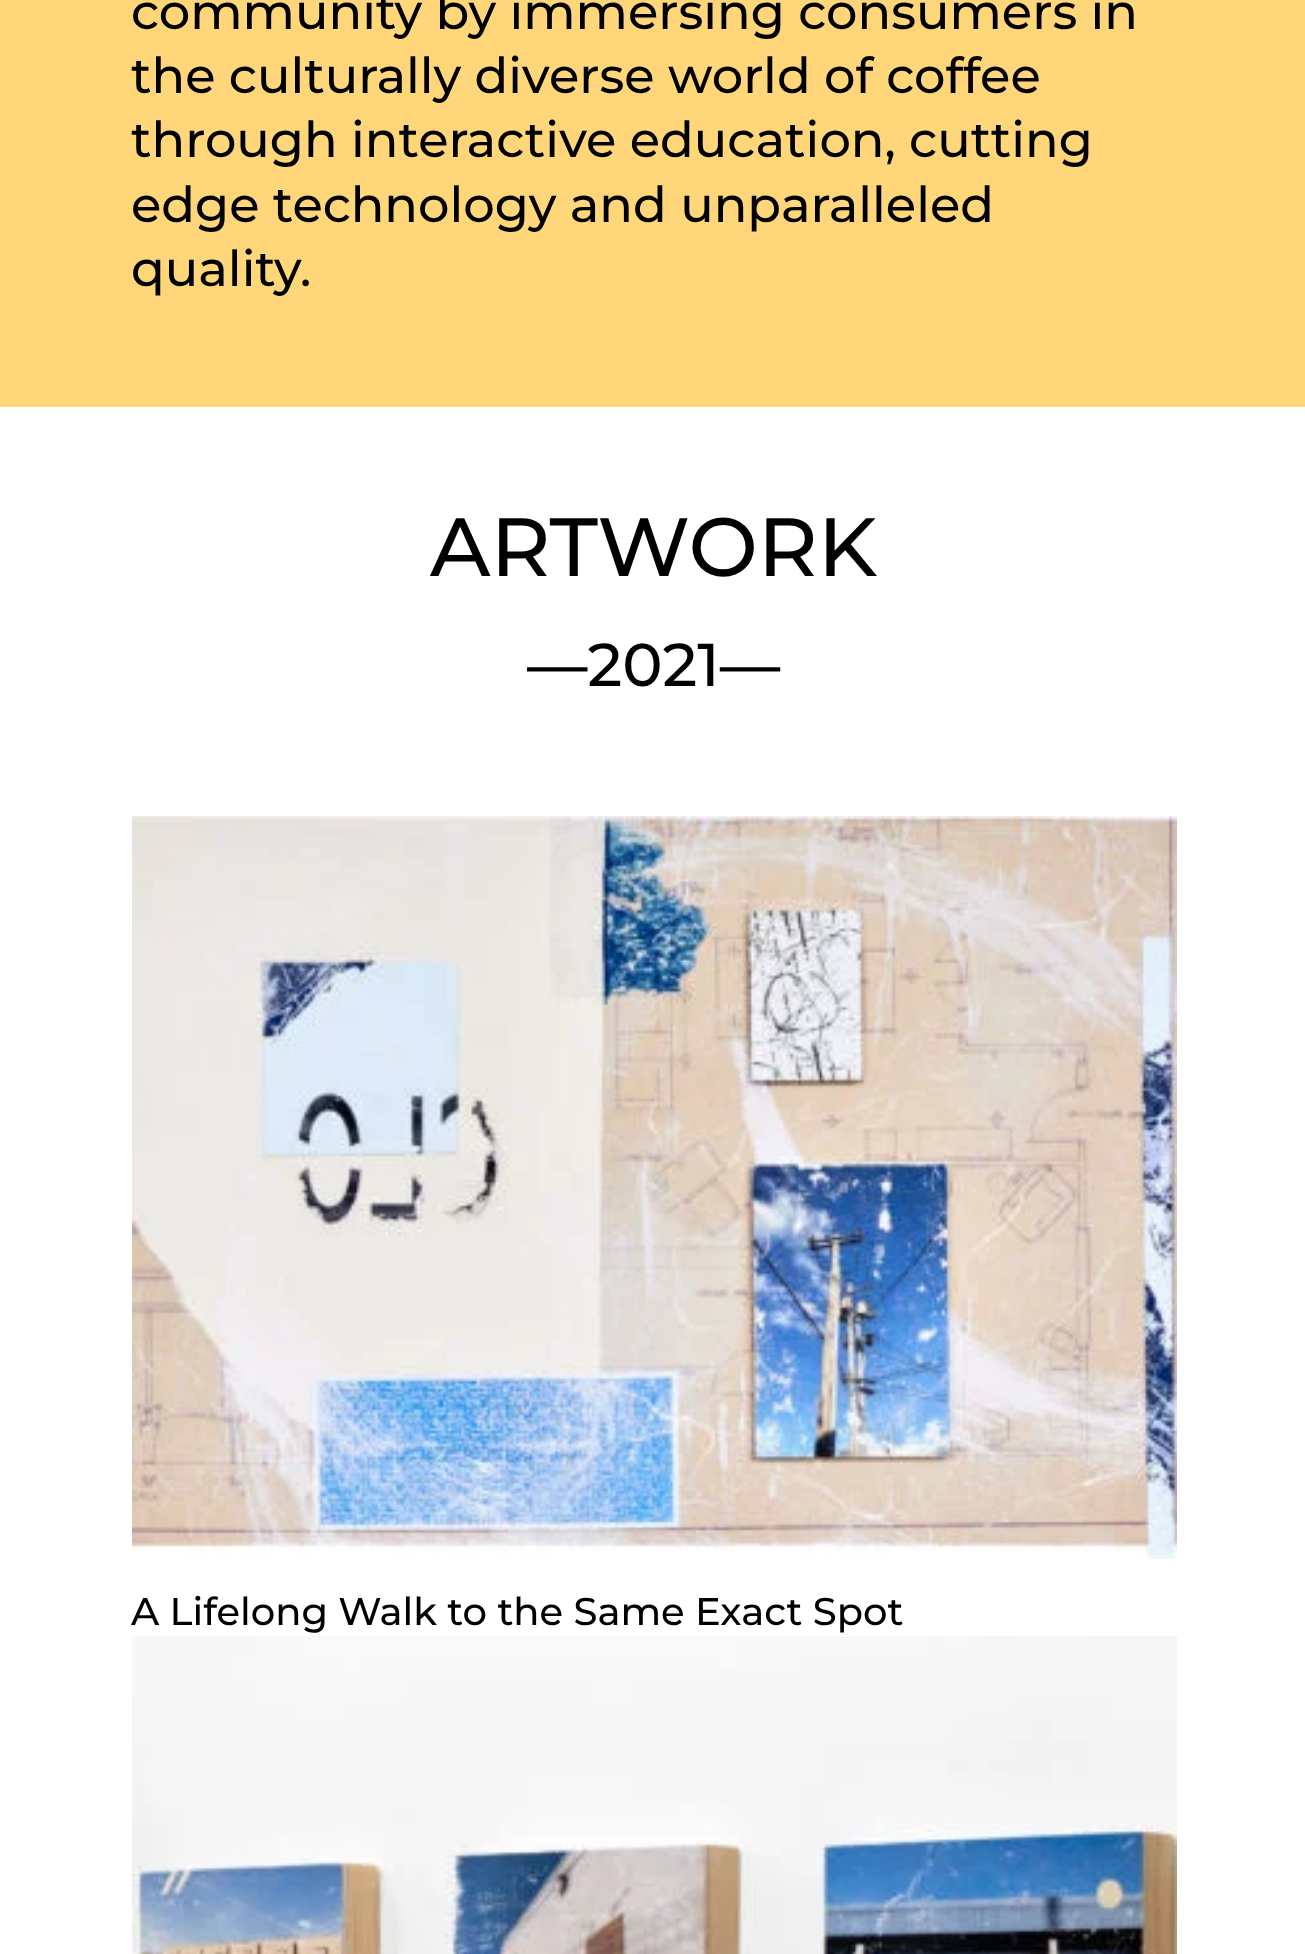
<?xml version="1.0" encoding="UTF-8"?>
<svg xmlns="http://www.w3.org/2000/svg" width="1305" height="1954">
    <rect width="100%" height="100%" fill="#FFFFFF"/>
    <rect x="0" y="0" width="1305" height="407" fill="#FFD67A"/>
    <text font-family="Montserrat" font-size="49.5" font-weight="500" fill="#000000">
        <tspan x="131" y="29">community by immersing consumers in</tspan>
        <tspan x="131" y="93">the culturally diverse world of coffee</tspan>
        <tspan x="131" y="157">through interactive education, cutting</tspan>
        <tspan x="131" y="222">edge technology and unparalleled</tspan>
        <tspan x="131" y="286">quality.</tspan>
    </text>
    <text x="430" y="576" font-family="Montserrat" font-size="82.5" font-weight="500" fill="#000000">ARTWORK</text>
    <text x="527" y="686" font-family="Montserrat" font-size="60.5" font-weight="500" fill="#000000">—2021—</text>
    <image x="132" y="816" width="1045" height="743" href="img_01.png"/>
    <text x="131" y="1625" font-family="Montserrat" font-size="38.5" font-weight="500" fill="#000000">A Lifelong Walk to the Same Exact Spot</text>
    <image x="132" y="1636" width="1045" height="318" href="img_02.png"/>
</svg>
